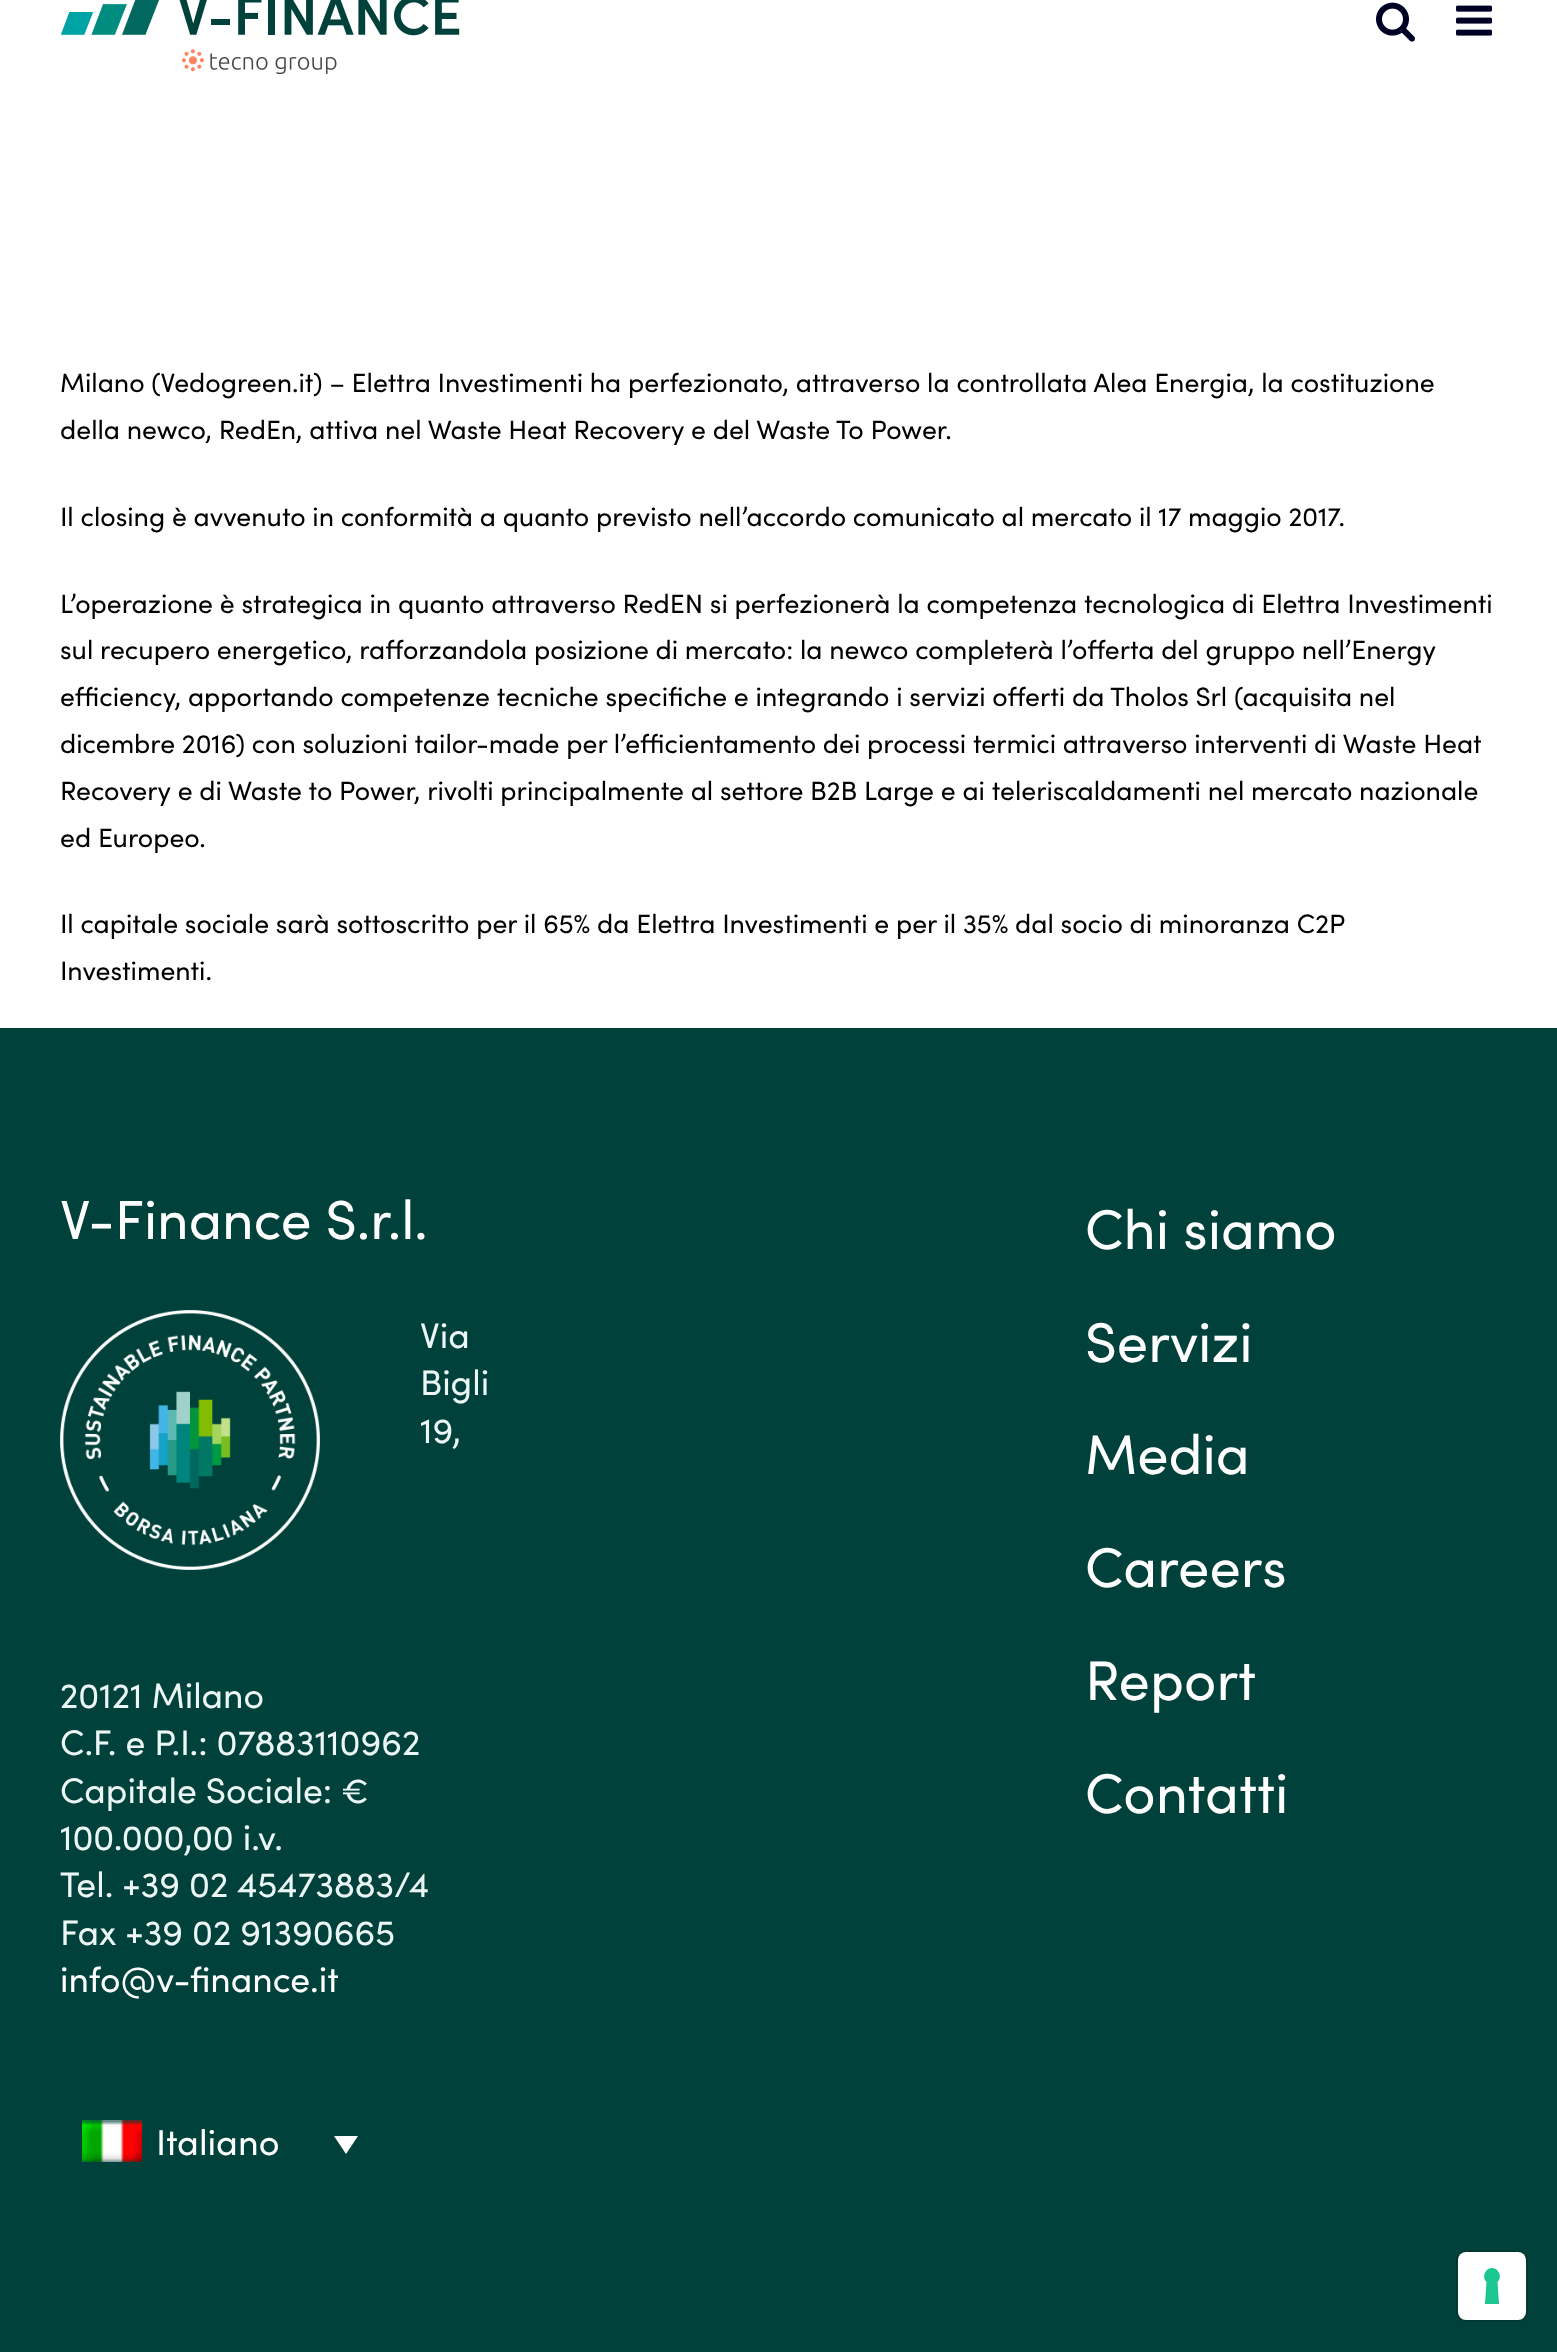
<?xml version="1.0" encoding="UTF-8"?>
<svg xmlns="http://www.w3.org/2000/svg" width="1557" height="2352">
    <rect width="100%" height="100%" fill="#FFFFFF"/>
    <image x="60" y="0" width="400" height="74" href="img_01.png"/>
    <image x="1376" y="2" width="39" height="40" href="img_02.png"/>
    <image x="1456" y="5" width="36" height="31" href="img_03.png"/>
    <text font-family="Sofia" font-size="26.67" fill="#000000">
        <tspan x="60" y="392">Milano (Vedogreen.it) – Elettra Investimenti ha perfezionato, attraverso la controllata Alea Energia, la costituzione</tspan>
        <tspan x="60" y="439">della newco, RedEn, attiva nel Waste Heat Recovery e del Waste To Power.</tspan>
    </text>
    <text x="60" y="526" font-family="Sofia" font-size="26.67" fill="#000000">Il closing è avvenuto in conformità a quanto previsto nell’accordo comunicato al mercato il 17 maggio 2017.</text>
    <text font-family="Sofia" font-size="26.67" fill="#000000">
        <tspan x="60" y="613">L’operazione è strategica in quanto attraverso RedEN si perfezionerà la competenza tecnologica di Elettra Investimenti</tspan>
        <tspan x="60" y="659">sul recupero energetico, rafforzandola posizione di mercato: la newco completerà l’offerta del gruppo nell’Energy</tspan>
        <tspan x="60" y="706">efficiency, apportando competenze tecniche specifiche e integrando i servizi offerti da Tholos Srl (acquisita nel</tspan>
        <tspan x="60" y="753">dicembre 2016) con soluzioni tailor-made per l’efficientamento dei processi termici attraverso interventi di Waste Heat</tspan>
        <tspan x="60" y="800">Recovery e di Waste to Power, rivolti principalmente al settore B2B Large e ai teleriscaldamenti nel mercato nazionale</tspan>
        <tspan x="60" y="847">ed Europeo.</tspan>
    </text>
    <text font-family="Sofia" font-size="26.67" fill="#000000">
        <tspan x="60" y="933">Il capitale sociale sarà sottoscritto per il 65% da Elettra Investimenti e per il 35% dal socio di minoranza C2P</tspan>
        <tspan x="60" y="980">Investimenti.</tspan>
    </text>
    <rect x="0" y="1028" width="1557" height="1324" fill="#00423B"/>
    <text x="60" y="1239" font-family="Sofia" font-size="55" fill="#FFFFFF">V-Finance S.r.l.</text>
    <image x="60" y="1310" width="260" height="260" href="img_04.png"/>
    <text font-family="Sofia" font-size="35.5" fill="#EBF6F5">
        <tspan x="420" y="1348">Via</tspan>
        <tspan x="420" y="1395">Bigli</tspan>
        <tspan x="420" y="1443">19,</tspan>
    </text>
    <text font-family="Sofia" font-size="35.5" fill="#EBF6F5">
        <tspan x="60" y="1708">20121 Milano</tspan>
        <tspan x="60" y="1755">C.F. e P.I.: 07883110962</tspan>
        <tspan x="60" y="1803">Capitale Sociale: €</tspan>
        <tspan x="60" y="1850">100.000,00 i.v.</tspan>
        <tspan x="60" y="1897">Tel. +39 02 45473883/4</tspan>
        <tspan x="60" y="1945">Fax +39 02 91390665</tspan>
    </text>
    <text x="60" y="1992" font-family="Sofia" font-size="35.5" fill="#FFFFFF">info@v-finance.it</text>
    <image x="82" y="2120" width="60" height="42" href="img_05.png"/>
    <text x="156" y="2155" font-family="Sofia" font-size="36" fill="#FFFFFF">Italiano</text>
    <path d="M 334 2136 H 358 L 346 2154 Z" fill="#FFFFFF"/>
    <text x="1085" y="1249" font-family="Sofia" font-size="56" fill="#FFFFFF">Chi siamo</text>
    <text x="1085" y="1362" font-family="Sofia" font-size="56" fill="#FFFFFF">Servizi</text>
    <text x="1085" y="1474" font-family="Sofia" font-size="56" fill="#FFFFFF">Media</text>
    <text x="1085" y="1587" font-family="Sofia" font-size="56" fill="#FFFFFF">Careers</text>
    <text x="1085" y="1700" font-family="Sofia" font-size="56" fill="#FFFFFF">Report</text>
    <text x="1085" y="1813" font-family="Sofia" font-size="56" fill="#FFFFFF">Contatti</text>
    <rect x="1457" y="2251" width="70" height="70" rx="9" fill="none" stroke="#003832" stroke-width="2"/>
    <rect x="1458" y="2252" width="68" height="68" rx="8" fill="#FFFFFF"/>
    <path d="M 1492 2268 C 1499 2268 1502.5 2277.5 1497.5 2282 L 1499 2304 H 1485 L 1486.5 2282 C 1481.5 2277.5 1485 2268 1492 2268 Z" fill="#1CC691" fill-rule="evenodd"/>
</svg>
